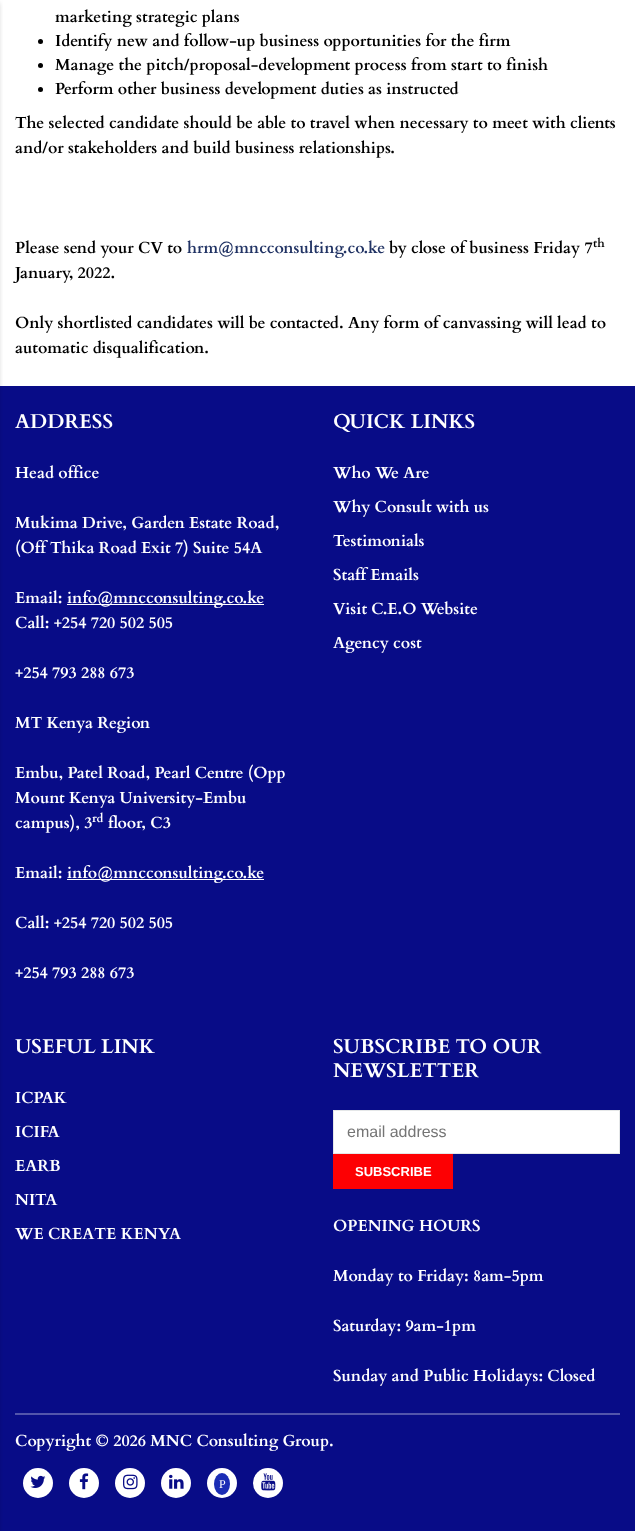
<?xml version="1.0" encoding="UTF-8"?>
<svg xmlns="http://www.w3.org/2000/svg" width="635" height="1531">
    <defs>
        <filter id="blur1" x="-50%" y="-200%" width="200%" height="500%"><feGaussianBlur stdDeviation="2.5"/></filter>
    </defs>
    <rect width="100%" height="100%" fill="#FFFFFF"/>
    <rect x="0" y="386" width="635" height="1145" fill="#080C87"/>
    <rect x="-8" y="3" width="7" height="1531" fill="#000000" fill-opacity="0.2" filter="url(#blur1)"/>
    <text x="55" y="22" font-family="Cardo" font-size="16" font-weight="700" fill="#000000">marketing strategic plans</text>
    <circle cx="40.5" cy="41.5" r="2.5" fill="#000000"/>
    <text x="55" y="46" font-family="Cardo" font-size="16" font-weight="700" fill="#000000">Identify new and follow-up business opportunities for the firm</text>
    <circle cx="40.5" cy="65.5" r="2.5" fill="#000000"/>
    <text x="55" y="70" font-family="Cardo" font-size="16" font-weight="700" fill="#000000">Manage the pitch/proposal-development process from start to finish</text>
    <circle cx="40.5" cy="89.5" r="2.5" fill="#000000"/>
    <text x="55" y="94" font-family="Cardo" font-size="16" font-weight="700" fill="#000000">Perform other business development duties as instructed</text>
    <text font-family="Cardo" font-size="16" font-weight="700" fill="#000000">
        <tspan x="15" y="128">The selected candidate should be able to travel when necessary to meet with clients</tspan>
        <tspan x="15" y="153">and/or stakeholders and build business relationships.</tspan>
    </text>
    <text x="15" y="253" font-family="Cardo" font-size="16" font-weight="700" fill="#000000">Please send your CV to</text>
    <text x="187" y="253" font-family="Cardo" font-size="16" font-weight="700" fill="#213364">hrm@mncconsulting.co.ke</text>
    <text x="389" y="253" font-family="Cardo" font-size="16" font-weight="700" fill="#000000">by close of business Friday 7</text>
    <text x="593" y="247" font-family="Cardo" font-size="12" font-weight="700" fill="#000000">th</text>
    <text x="15" y="278" font-family="Cardo" font-size="16" font-weight="700" fill="#000000">January, 2022.</text>
    <text font-family="Cardo" font-size="16" font-weight="700" fill="#000000">
        <tspan x="15" y="328">Only shortlisted candidates will be contacted. Any form of canvassing will lead to</tspan>
        <tspan x="15" y="353">automatic disqualification.</tspan>
    </text>
    <text x="15" y="428" font-family="Cardo" font-size="20" font-weight="700" fill="#FFFFFF">ADDRESS</text>
    <text x="15" y="478" font-family="Cardo" font-size="16" font-weight="700" fill="#FFFFFF">Head office</text>
    <text font-family="Cardo" font-size="16" font-weight="700" fill="#FFFFFF">
        <tspan x="15" y="528">Mukima Drive, Garden Estate Road,</tspan>
        <tspan x="15" y="553">(Off Thika Road Exit 7) Suite 54A</tspan>
    </text>
    <text x="15" y="603" font-family="Cardo" font-size="16" font-weight="700" fill="#FFFFFF">Email:</text>
    <rect x="67" y="604" width="197" height="1" fill="#FFFFFF"/>
    <text x="67" y="603" font-family="Cardo" font-size="16" font-weight="700" fill="#FFFFFF">info@mncconsulting.co.ke</text>
    <text x="15" y="628" font-family="Cardo" font-size="16" font-weight="700" fill="#FFFFFF">Call: +254 720 502 505</text>
    <text x="15" y="678" font-family="Cardo" font-size="16" font-weight="700" fill="#FFFFFF">+254 793 288 673</text>
    <text x="15" y="728" font-family="Cardo" font-size="16" font-weight="700" fill="#FFFFFF">MT Kenya Region</text>
    <text font-family="Cardo" font-size="16" font-weight="700" fill="#FFFFFF">
        <tspan x="15" y="778">Embu, Patel Road, Pearl Centre (Opp</tspan>
        <tspan x="15" y="803">Mount Kenya University-Embu</tspan>
        <tspan x="15" y="828">campus), 3</tspan>
    </text>
    <text x="92" y="822" font-family="Cardo" font-size="12" font-weight="700" fill="#FFFFFF">rd</text>
    <text x="108" y="828" font-family="Cardo" font-size="16" font-weight="700" fill="#FFFFFF">floor, C3</text>
    <text x="15" y="878" font-family="Cardo" font-size="16" font-weight="700" fill="#FFFFFF">Email:</text>
    <rect x="67" y="879" width="197" height="1" fill="#FFFFFF"/>
    <text x="67" y="878" font-family="Cardo" font-size="16" font-weight="700" fill="#FFFFFF">info@mncconsulting.co.ke</text>
    <text x="15" y="928" font-family="Cardo" font-size="16" font-weight="700" fill="#FFFFFF">Call: +254 720 502 505</text>
    <text x="15" y="978" font-family="Cardo" font-size="16" font-weight="700" fill="#FFFFFF">+254 793 288 673</text>
    <text x="333" y="428" font-family="Cardo" font-size="20" font-weight="700" fill="#FFFFFF">QUICK LINKS</text>
    <text x="333" y="478" font-family="Cardo" font-size="16" font-weight="700" fill="#FFFFFF">Who We Are</text>
    <text x="333" y="512" font-family="Cardo" font-size="16" font-weight="700" fill="#FFFFFF">Why Consult with us</text>
    <text x="333" y="546" font-family="Cardo" font-size="16" font-weight="700" fill="#FFFFFF">Testimonials</text>
    <text x="333" y="580" font-family="Cardo" font-size="16" font-weight="700" fill="#FFFFFF">Staff Emails</text>
    <text x="333" y="614" font-family="Cardo" font-size="16" font-weight="700" fill="#FFFFFF">Visit C.E.O Website</text>
    <text x="333" y="648" font-family="Cardo" font-size="16" font-weight="700" fill="#FFFFFF">Agency cost</text>
    <text x="15" y="1053" font-family="Cardo" font-size="20" font-weight="700" fill="#FFFFFF">USEFUL LINK</text>
    <text x="15" y="1103" font-family="Cardo" font-size="16" font-weight="700" fill="#FFFFFF">ICPAK</text>
    <text x="15" y="1137" font-family="Cardo" font-size="16" font-weight="700" fill="#FFFFFF">ICIFA</text>
    <text x="15" y="1171" font-family="Cardo" font-size="16" font-weight="700" fill="#FFFFFF">EARB</text>
    <text x="15" y="1205" font-family="Cardo" font-size="16" font-weight="700" fill="#FFFFFF">NITA</text>
    <text x="15" y="1239" font-family="Cardo" font-size="16" font-weight="700" fill="#FFFFFF">WE CREATE KENYA</text>
    <text font-family="Cardo" font-size="20" font-weight="700" fill="#FFFFFF">
        <tspan x="333" y="1053">SUBSCRIBE TO OUR</tspan>
        <tspan x="333" y="1077">NEWSLETTER</tspan>
    </text>
    <rect x="333.5" y="1110.5" width="286" height="43" fill="#FFFFFF" stroke="#E5E7E8"/>
    <text x="347" y="1137" font-family="Liberation Sans" font-size="16" fill="#757575">email address</text>
    <rect x="333" y="1154" width="120" height="35" fill="#FD0003"/>
    <text x="355" y="1176" font-family="Liberation Sans" font-size="13" font-weight="700" fill="#FFFFFF">SUBSCRIBE</text>
    <text x="333" y="1231" font-family="Cardo" font-size="16" font-weight="700" fill="#FFFFFF">OPENING HOURS</text>
    <text x="333" y="1281" font-family="Cardo" font-size="16" font-weight="700" fill="#FFFFFF">Monday to Friday: 8am-5pm</text>
    <text x="333" y="1331" font-family="Cardo" font-size="16" font-weight="700" fill="#FFFFFF">Saturday: 9am-1pm</text>
    <text x="333" y="1381" font-family="Cardo" font-size="16" font-weight="700" fill="#FFFFFF">Sunday and Public Holidays: Closed</text>
    <rect x="15" y="1413" width="605" height="2" fill="#5255AB"/>
    <text x="15" y="1446" font-family="Cardo" font-size="16" font-weight="700" fill="#FFFFFF">Copyright © 2026 MNC Consulting Group.</text>
    <circle cx="38" cy="1483" r="15" fill="#FFFFFF"/>
    <image x="30" y="1475" width="16" height="13" href="img_01.png"/>
    <circle cx="84" cy="1483" r="15" fill="#FFFFFF"/>
    <image x="79" y="1473" width="10" height="17" href="img_02.png"/>
    <circle cx="130" cy="1483" r="15" fill="#FFFFFF"/>
    <image x="123" y="1474" width="15" height="16" href="img_03.png"/>
    <circle cx="176" cy="1483" r="15" fill="#FFFFFF"/>
    <image x="169" y="1474" width="15" height="15" href="img_04.png"/>
    <circle cx="222" cy="1483" r="15" fill="#FFFFFF"/>
    <ellipse cx="222" cy="1484" rx="8" ry="11" fill="#1B2DB5"/>
    <text x="219" y="1488" font-family="Liberation Serif" font-size="12" fill="#FFFFFF">P</text>
    <circle cx="268" cy="1483" r="15" fill="#FFFFFF"/>
    <image x="261" y="1473" width="15" height="18" href="img_05.png"/>
</svg>
